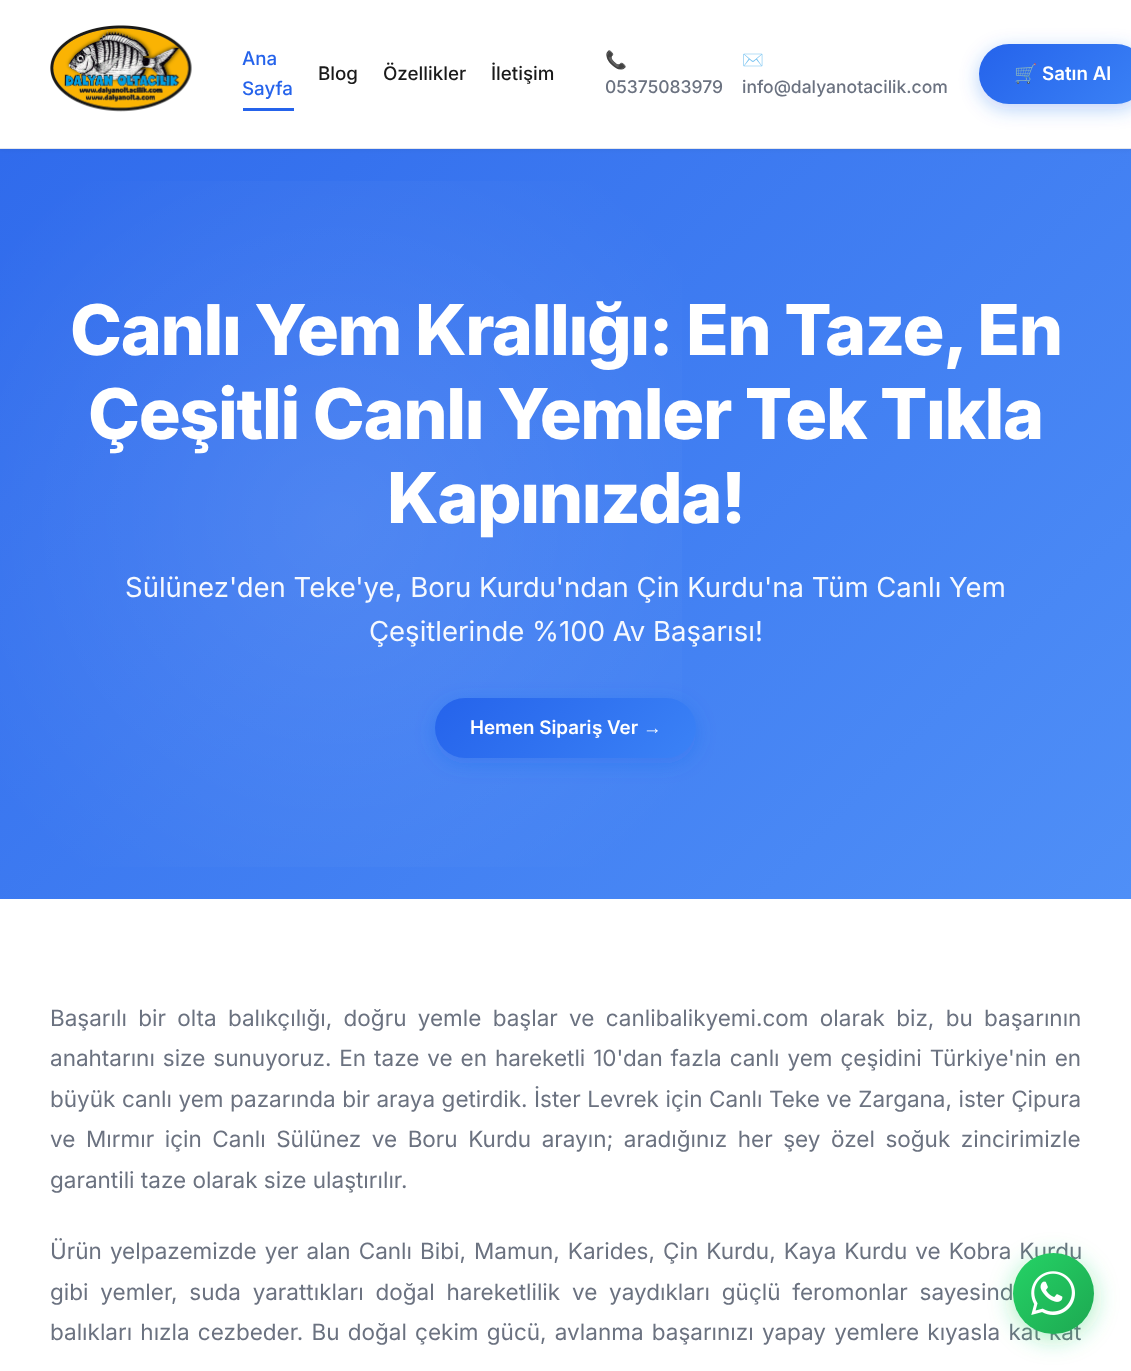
<?xml version="1.0" encoding="UTF-8"?>
<svg xmlns="http://www.w3.org/2000/svg" width="1131" height="1371">
    <defs>
        <linearGradient id="g1" gradientUnits="userSpaceOnUse" x1="95" y1="53" x2="1036" y2="994"><stop offset="0" stop-color="#306BEC"/><stop offset="1" stop-color="#4F8FF7"/></linearGradient>
        <filter id="blur1" x="-50%" y="-200%" width="200%" height="500%"><feGaussianBlur stdDeviation="2"/></filter>
        <filter id="blur2" x="-50%" y="-200%" width="200%" height="500%"><feGaussianBlur stdDeviation="9.5"/></filter>
        <linearGradient id="g2" gradientUnits="userSpaceOnUse" x1="1006" y1="17" x2="1119" y2="131"><stop offset="0" stop-color="#2563EB"/><stop offset="1" stop-color="#3B82F6"/></linearGradient>
        <radialGradient id="g3" gradientUnits="userSpaceOnUse" cx="339" cy="524" r="876"><stop offset="0" stop-color="#FFFFFF" stop-opacity="0.1"/><stop offset="0.5" stop-color="#FFFFFF" stop-opacity="0"/></radialGradient>
        <linearGradient id="g4" gradientUnits="userSpaceOnUse" x1="485" y1="647" x2="646" y2="808"><stop offset="0" stop-color="#2563EB"/><stop offset="1" stop-color="#3B82F6"/></linearGradient>
        <filter id="blur3" x="-50%" y="-200%" width="200%" height="500%"><feGaussianBlur stdDeviation="12.5"/></filter>
        <linearGradient id="g5" gradientUnits="userSpaceOnUse" x1="1013" y1="1253" x2="1094" y2="1334"><stop offset="0" stop-color="#25D366"/><stop offset="1" stop-color="#1DA851"/></linearGradient>
    </defs>
    <rect width="100%" height="100%" fill="#FFFFFF"/>
    <rect x="0" y="149" width="1131" height="750" fill="url(#g1)"/>
    <rect x="0" y="1" width="1131" height="149" fill="#000000" fill-opacity="0.05" filter="url(#blur1)"/>
    <rect x="0" y="0" width="1131" height="148" fill="#FFFFFF"/>
    <rect x="0" y="148" width="1131" height="1" fill="#E5E7EB"/>
    <image x="50" y="25" width="142" height="87" href="img_01.png"/>
    <text font-family="Inter" font-size="18.75" font-weight="500" fill="#2563EB">
        <tspan x="242" y="65">Ana</tspan>
        <tspan x="242" y="95">Sayfa</tspan>
    </text>
    <rect x="243" y="108" width="51" height="3" fill="#2563EB"/>
    <text x="318" y="80" font-family="Inter" font-size="18.75" font-weight="500" fill="#1A1A1A">Blog</text>
    <text x="383" y="80" font-family="Inter" font-size="18.75" font-weight="500" fill="#1A1A1A">Özellikler</text>
    <text x="491" y="80" font-family="Inter" font-size="18.75" font-weight="500" fill="#1A1A1A">İletişim</text>
    <text x="605" y="66" font-family="Noto Color Emoji" font-size="17.5" fill="#6B7280">📞</text>
    <text x="605" y="93" font-family="Inter" font-size="17.5" font-weight="500" fill="#6B7280">05375083979</text>
    <text x="742" y="66" font-family="Noto Color Emoji" font-size="17.5" fill="#6B7280">✉️</text>
    <text x="742" y="93" font-family="Inter" font-size="17.5" font-weight="500" fill="#6B7280">info@dalyanotacilik.com</text>
    <rect x="979" y="49" width="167" height="60" rx="30" fill="#2563EB" fill-opacity="0.3" filter="url(#blur2)"/>
    <rect x="979" y="44" width="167" height="60" rx="30" fill="url(#g2)"/>
    <text x="1014" y="80" font-family="Noto Color Emoji" font-size="18.75" font-weight="700" fill="#FFFFFF">🛒</text>
    <text x="1042" y="80" font-family="Inter" font-size="18.75" font-weight="600" fill="#FFFFFF">Satın Al</text>
    <rect x="0" y="181" width="682" height="686" fill="url(#g3)"/>
    <text x="70" y="355" font-family="Inter" font-size="70" font-weight="800" letter-spacing="-1.4" fill="#FFFFFF">Canlı Yem Krallığı: En Taze, En</text>
    <text x="88" y="439" font-family="Inter" font-size="70" font-weight="800" letter-spacing="-1.4" fill="#FFFFFF">Çeşitli Canlı Yemler Tek Tıkla</text>
    <text x="387" y="523" font-family="Inter" font-size="70" font-weight="800" letter-spacing="-1.4" fill="#FFFFFF">Kapınızda!</text>
    <text x="125" y="597" font-family="Inter" font-size="27.5" fill="#F6F9FE">Sülünez'den Teke'ye, Boru Kurdu'ndan Çin Kurdu'na Tüm Canlı Yem</text>
    <text x="369" y="641" font-family="Inter" font-size="27.5" fill="#F6F9FE">Çeşitlerinde %100 Av Başarısı!</text>
    <rect x="435" y="703" width="261" height="60" rx="30" fill="#2563EB" fill-opacity="0.3" filter="url(#blur2)"/>
    <rect x="435" y="698" width="261" height="60" rx="30" fill="url(#g4)"/>
    <text x="470" y="734" font-family="Inter" font-size="18.75" font-weight="600" fill="#FFFFFF">Hemen Sipari</text>
    <text x="592" y="734" font-family="Liberation Sans" font-size="18.75" font-weight="700" fill="#FFFFFF">ş</text>
    <text x="607" y="734" font-family="Inter" font-size="18.75" font-weight="600" fill="#FFFFFF">Ver</text>
    <text x="643" y="734" font-family="Liberation Sans" font-size="18.75" font-weight="700" fill="#FFFFFF">→</text>
    <text font-family="Inter" font-size="22.5" fill="#6B7280">
        <tspan x="50" y="1026" word-spacing="5">Başarılı bir olta balıkçılığı, doğru yemle başlar ve canlibalikyemi.com olarak biz, bu başarının</tspan>
        <tspan x="50" y="1066" word-spacing="1.6">anahtarını size sunuyoruz. En taze ve en hareketli 10'dan fazla canlı yem çeşidini Türkiye'nin en</tspan>
        <tspan x="50" y="1107" word-spacing="0.25">büyük canlı yem pazarında bir araya getirdik. İster Levrek için Canlı Teke ve Zargana, ister Çipura</tspan>
        <tspan x="50" y="1147" word-spacing="4.25">ve Mırmır için Canlı Sülünez ve Boru Kurdu arayın; aradığınız her şey özel soğuk zincirimizle</tspan>
        <tspan x="50" y="1188">garantili taze olarak size ulaştırılır.</tspan>
    </text>
    <text font-family="Inter" font-size="22.5" fill="#6B7280">
        <tspan x="50" y="1259" word-spacing="1.75">Ürün yelpazemizde yer alan Canlı Bibi, Mamun, Karides, Çin Kurdu, Kaya Kurdu ve Kobra Kurdu</tspan>
        <tspan x="50" y="1300" word-spacing="5.5">gibi yemler, suda yarattıkları doğal hareketlilik ve yaydıkları güçlü feromonlar sayesind</tspan>
        <tspan x="50" y="1340" word-spacing="1.9">balıkları hızla cezbeder. Bu doğal çekim gücü, avlanma başarınızı yapay yemlere kıyasla kat kat</tspan>
    </text>
    <rect x="1013" y="1258" width="81" height="81" rx="40.5" fill="#25D366" fill-opacity="0.4" filter="url(#blur3)"/>
    <circle cx="1053.5" cy="1293.5" r="40.5" fill="url(#g5)"/>
    <image x="1031" y="1271" width="44" height="44" href="img_02.png"/>
</svg>
